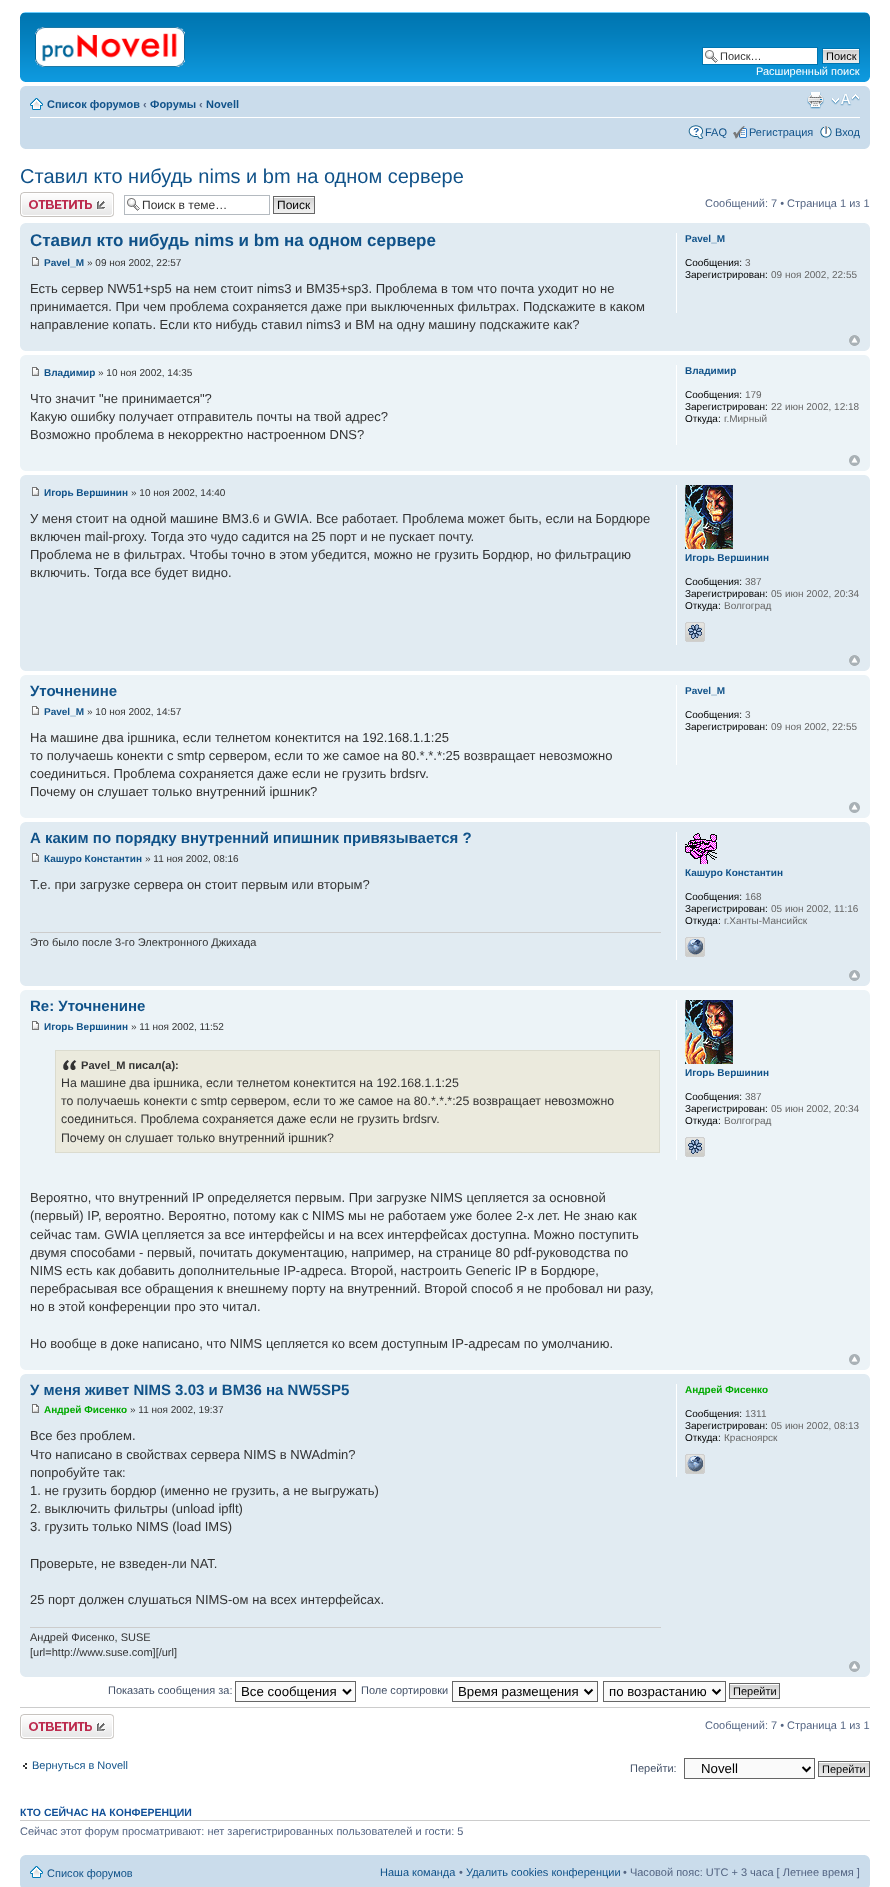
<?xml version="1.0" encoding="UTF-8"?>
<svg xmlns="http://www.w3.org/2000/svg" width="890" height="1887">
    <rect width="100%" height="100%" fill="#FFFFFF"/>
    <image x="20" y="12" width="850" height="70" href="img_01.png"/>
    <image x="20" y="12" width="5" height="5" href="img_02.png"/>
    <image x="865" y="12" width="5" height="5" href="img_03.png"/>
    <image x="35" y="27" width="150" height="40" href="img_04.png"/>
    <rect x="703" y="48" width="114" height="16" fill="#FFFFFF"/>
    <image x="705" y="50" width="13" height="13" href="img_05.png"/>
    <rect x="702.5" y="47.5" width="115" height="17" fill="none" stroke="#0075B0"/>
    <text x="720" y="60" font-family="Liberation Sans" font-size="11" fill="#333333">Поиск…</text>
    <image x="823" y="49" width="36" height="14" href="img_06.png"/>
    <rect x="822.5" y="48.5" width="37" height="15" fill="none" stroke="#0075B0"/>
    <text x="826" y="60" font-family="Liberation Sans" font-size="11" fill="#000000">Поиск</text>
    <text x="756" y="75" font-family="Liberation Sans" font-size="11" fill="#FFFFFF">Расширенный поиск</text>
    <image x="20" y="77" width="5" height="5" href="img_07.png"/>
    <image x="865" y="77" width="5" height="5" href="img_08.png"/>
    <rect x="20" y="86" width="850" height="63" fill="#CADCEB"/>
    <image x="20" y="86" width="5" height="5" href="img_09.png"/>
    <image x="865" y="86" width="5" height="5" href="img_10.png"/>
    <rect x="30" y="117" width="830" height="1" fill="#FFFFFF"/>
    <image x="30" y="98" width="13" height="12" href="img_11.png"/>
    <text x="47" y="108" font-family="Liberation Sans" font-size="11" font-weight="700" fill="#105289">Список форумов</text>
    <text x="143" y="108" font-family="Liberation Sans" font-size="11" font-weight="700" fill="#536482">‹</text>
    <text x="150" y="108" font-family="Liberation Sans" font-size="11" font-weight="700" fill="#105289">Форумы</text>
    <text x="199" y="108" font-family="Liberation Sans" font-size="11" font-weight="700" fill="#536482">‹</text>
    <text x="206" y="108" font-family="Liberation Sans" font-size="11" font-weight="700" fill="#105289">Novell</text>
    <image x="807" y="92" width="17" height="17" href="img_12.png"/>
    <image x="831" y="94" width="29" height="12" href="img_13.png"/>
    <image x="688" y="125" width="16" height="14" href="img_14.png"/>
    <text x="705" y="136" font-family="Liberation Sans" font-size="11" fill="#105289">FAQ</text>
    <image x="733" y="126" width="14" height="13" href="img_15.png"/>
    <text x="749" y="136" font-family="Liberation Sans" font-size="11" fill="#105289">Регистрация</text>
    <image x="820" y="126" width="12" height="12" href="img_16.png"/>
    <text x="835" y="136" font-family="Liberation Sans" font-size="11" fill="#105289">Вход</text>
    <image x="20" y="144" width="5" height="5" href="img_17.png"/>
    <image x="865" y="144" width="5" height="5" href="img_18.png"/>
    <text x="20" y="183" font-family="Liberation Sans" font-size="20" fill="#105289">Ставил кто нибудь nims и bm на одном сервере</text>
    <image x="20" y="192" width="94" height="25" href="img_19.png"/>
    <image x="127" y="198" width="13" height="13" href="img_05.png"/>
    <rect x="124.5" y="195.5" width="145" height="19" fill="none" stroke="#B4BAC0"/>
    <text x="142" y="209" font-family="Liberation Sans" font-size="12" fill="#333333">Поиск в теме…</text>
    <image x="274" y="197" width="40" height="16" href="img_20.png"/>
    <rect x="273.5" y="196.5" width="41" height="17" fill="none" stroke="#666666"/>
    <text x="277" y="209" font-family="Liberation Sans" font-size="12" fill="#000000">Поиск</text>
    <text x="705" y="207" font-family="Liberation Sans" font-size="11" fill="#536482">Сообщений: 7 • Страница 1 из 1</text>
    <rect x="20" y="223" width="850" height="128" fill="#E1EBF2"/>
    <image x="20" y="223" width="5" height="5" href="img_21.png"/>
    <image x="865" y="223" width="5" height="5" href="img_22.png"/>
    <text x="30" y="246" font-family="Liberation Sans" font-size="17" font-weight="700" fill="#105289">Ставил кто нибудь nims и bm на одном сервере</text>
    <image x="32" y="257" width="7" height="9" href="img_23.png"/>
    <text x="44" y="266" font-family="Liberation Sans" font-size="10" font-weight="700" fill="#105289">Pavel_M</text>
    <text x="87" y="266" font-family="Liberation Sans" font-size="10" fill="#333333">» 09 ноя 2002, 22:57</text>
    <text font-family="Liberation Sans" font-size="13" fill="#333333">
        <tspan x="30" y="293">Есть сервер NW51+sp5 на нем стоит nims3 и BM35+sp3. Проблема в том что почта уходит но не</tspan>
        <tspan x="30" y="311">принимается. При чем проблема сохраняется даже при выключенных фильтрах. Подскажите в каком</tspan>
        <tspan x="30" y="329">направление копать. Если кто нибудь ставил nims3 и BM на одну машину подскажите как?</tspan>
    </text>
    <rect x="676" y="233" width="1" height="80" fill="#FFFFFF"/>
    <text x="685" y="242" font-family="Liberation Sans" font-size="10" font-weight="700" fill="#105289">Pavel_M</text>
    <text x="685" y="266" font-family="Liberation Sans" font-size="10" fill="#000000">Сообщения:</text>
    <text x="745" y="266" font-family="Liberation Sans" font-size="10" fill="#666666">3</text>
    <text x="685" y="278" font-family="Liberation Sans" font-size="10" fill="#000000">Зарегистрирован:</text>
    <text x="771" y="278" font-family="Liberation Sans" font-size="10" fill="#666666">09 ноя 2002, 22:55</text>
    <image x="849" y="335" width="11" height="11" href="img_24.png"/>
    <image x="20" y="346" width="5" height="5" href="img_25.png"/>
    <image x="865" y="346" width="5" height="5" href="img_26.png"/>
    <rect x="20" y="355" width="850" height="116" fill="#ECF3F7"/>
    <image x="20" y="355" width="5" height="5" href="img_27.png"/>
    <image x="865" y="355" width="5" height="5" href="img_28.png"/>
    <image x="32" y="367" width="7" height="9" href="img_29.png"/>
    <text x="44" y="376" font-family="Liberation Sans" font-size="10" font-weight="700" fill="#105289">Владимир</text>
    <text x="98" y="376" font-family="Liberation Sans" font-size="10" fill="#333333">» 10 ноя 2002, 14:35</text>
    <text font-family="Liberation Sans" font-size="13" fill="#333333">
        <tspan x="30" y="403">Что значит "не принимается"?</tspan>
        <tspan x="30" y="421">Какую ошибку получает отправитель почты на твой адрес?</tspan>
        <tspan x="30" y="439">Возможно проблема в некорректно настроенном DNS?</tspan>
    </text>
    <rect x="676" y="365" width="1" height="80" fill="#FFFFFF"/>
    <text x="685" y="374" font-family="Liberation Sans" font-size="10" font-weight="700" fill="#105289">Владимир</text>
    <text x="685" y="398" font-family="Liberation Sans" font-size="10" fill="#000000">Сообщения:</text>
    <text x="745" y="398" font-family="Liberation Sans" font-size="10" fill="#666666">179</text>
    <text x="685" y="410" font-family="Liberation Sans" font-size="10" fill="#000000">Зарегистрирован:</text>
    <text x="771" y="410" font-family="Liberation Sans" font-size="10" fill="#666666">22 июн 2002, 12:18</text>
    <text x="685" y="422" font-family="Liberation Sans" font-size="10" fill="#000000">Откуда:</text>
    <text x="724" y="422" font-family="Liberation Sans" font-size="10" fill="#666666">г.Мирный</text>
    <image x="849" y="455" width="11" height="11" href="img_30.png"/>
    <image x="20" y="466" width="5" height="5" href="img_31.png"/>
    <image x="865" y="466" width="5" height="5" href="img_32.png"/>
    <rect x="20" y="475" width="850" height="196" fill="#E1EBF2"/>
    <image x="20" y="475" width="5" height="5" href="img_21.png"/>
    <image x="865" y="475" width="5" height="5" href="img_22.png"/>
    <image x="32" y="487" width="7" height="9" href="img_23.png"/>
    <text x="44" y="496" font-family="Liberation Sans" font-size="10" font-weight="700" fill="#105289">Игорь Вершинин</text>
    <text x="131" y="496" font-family="Liberation Sans" font-size="10" fill="#333333">» 10 ноя 2002, 14:40</text>
    <text font-family="Liberation Sans" font-size="13" fill="#333333">
        <tspan x="30" y="523">У меня стоит на одной машине BM3.6 и GWIA. Все работает. Проблема может быть, если на Бордюре</tspan>
        <tspan x="30" y="541">включен mail-proxy. Тогда это чудо садится на 25 порт и не пускает почту.</tspan>
        <tspan x="30" y="559">Проблема не в фильтрах. Чтобы точно в этом убедится, можно не грузить Бордюр, но фильтрацию</tspan>
        <tspan x="30" y="577">включить. Тогда все будет видно.</tspan>
    </text>
    <rect x="676" y="485" width="1" height="160" fill="#FFFFFF"/>
    <image x="685" y="485" width="48" height="64" href="img_33.png"/>
    <text x="685" y="561" font-family="Liberation Sans" font-size="10" font-weight="700" fill="#105289">Игорь Вершинин</text>
    <text x="685" y="585" font-family="Liberation Sans" font-size="10" fill="#000000">Сообщения:</text>
    <text x="745" y="585" font-family="Liberation Sans" font-size="10" fill="#666666">387</text>
    <text x="685" y="597" font-family="Liberation Sans" font-size="10" fill="#000000">Зарегистрирован:</text>
    <text x="771" y="597" font-family="Liberation Sans" font-size="10" fill="#666666">05 июн 2002, 20:34</text>
    <text x="685" y="609" font-family="Liberation Sans" font-size="10" fill="#000000">Откуда:</text>
    <text x="724" y="609" font-family="Liberation Sans" font-size="10" fill="#666666">Волгоград</text>
    <image x="685" y="622" width="20" height="20" href="img_34.png"/>
    <image x="849" y="655" width="11" height="11" href="img_24.png"/>
    <image x="20" y="666" width="5" height="5" href="img_25.png"/>
    <image x="865" y="666" width="5" height="5" href="img_26.png"/>
    <rect x="20" y="675" width="850" height="143" fill="#ECF3F7"/>
    <image x="20" y="675" width="5" height="5" href="img_27.png"/>
    <image x="865" y="675" width="5" height="5" href="img_28.png"/>
    <text x="30" y="696" font-family="Liberation Sans" font-size="15" font-weight="700" fill="#105289">Уточненине</text>
    <image x="32" y="706" width="7" height="9" href="img_29.png"/>
    <text x="44" y="715" font-family="Liberation Sans" font-size="10" font-weight="700" fill="#105289">Pavel_M</text>
    <text x="87" y="715" font-family="Liberation Sans" font-size="10" fill="#333333">» 10 ноя 2002, 14:57</text>
    <text font-family="Liberation Sans" font-size="13" fill="#333333">
        <tspan x="30" y="742">На машине два ipшника, если телнетом конектится на 192.168.1.1:25</tspan>
        <tspan x="30" y="760">то получаешь конекти с smtp сервером, если то же самое на 80.*.*.*:25 возвращает невозможно</tspan>
        <tspan x="30" y="778">соединиться. Проблема сохраняется даже если не грузить brdsrv.</tspan>
        <tspan x="30" y="796">Почему он слушает только внутренний ipшник?</tspan>
    </text>
    <rect x="676" y="685" width="1" height="80" fill="#FFFFFF"/>
    <text x="685" y="694" font-family="Liberation Sans" font-size="10" font-weight="700" fill="#105289">Pavel_M</text>
    <text x="685" y="718" font-family="Liberation Sans" font-size="10" fill="#000000">Сообщения:</text>
    <text x="745" y="718" font-family="Liberation Sans" font-size="10" fill="#666666">3</text>
    <text x="685" y="730" font-family="Liberation Sans" font-size="10" fill="#000000">Зарегистрирован:</text>
    <text x="771" y="730" font-family="Liberation Sans" font-size="10" fill="#666666">09 ноя 2002, 22:55</text>
    <image x="849" y="802" width="11" height="11" href="img_30.png"/>
    <image x="20" y="813" width="5" height="5" href="img_31.png"/>
    <image x="865" y="813" width="5" height="5" href="img_32.png"/>
    <rect x="20" y="822" width="850" height="164" fill="#E1EBF2"/>
    <image x="20" y="822" width="5" height="5" href="img_21.png"/>
    <image x="865" y="822" width="5" height="5" href="img_22.png"/>
    <text x="30" y="843" font-family="Liberation Sans" font-size="15" font-weight="700" fill="#105289">А каким по порядку внутренний ипишник привязывается ?</text>
    <image x="32" y="853" width="7" height="9" href="img_23.png"/>
    <text x="44" y="862" font-family="Liberation Sans" font-size="10" font-weight="700" fill="#105289">Кашуро Константин</text>
    <text x="145" y="862" font-family="Liberation Sans" font-size="10" fill="#333333">» 11 ноя 2002, 08:16</text>
    <text x="30" y="889" font-family="Liberation Sans" font-size="13" fill="#333333">Т.е. при загрузке сервера он стоит первым или вторым?</text>
    <rect x="30" y="932" width="631" height="1" fill="#CCCCCC"/>
    <text x="30" y="946" font-family="Liberation Sans" font-size="11" fill="#333333">Это было после 3-го Электронного Джихада</text>
    <rect x="676" y="832" width="1" height="128" fill="#FFFFFF"/>
    <image x="685" y="833" width="32" height="31" href="img_35.png"/>
    <text x="685" y="876" font-family="Liberation Sans" font-size="10" font-weight="700" fill="#105289">Кашуро Константин</text>
    <text x="685" y="900" font-family="Liberation Sans" font-size="10" fill="#000000">Сообщения:</text>
    <text x="745" y="900" font-family="Liberation Sans" font-size="10" fill="#666666">168</text>
    <text x="685" y="912" font-family="Liberation Sans" font-size="10" fill="#000000">Зарегистрирован:</text>
    <text x="771" y="912" font-family="Liberation Sans" font-size="10" fill="#666666">05 июн 2002, 11:16</text>
    <text x="685" y="924" font-family="Liberation Sans" font-size="10" fill="#000000">Откуда:</text>
    <text x="724" y="924" font-family="Liberation Sans" font-size="10" fill="#666666">г.Ханты-Мансийск</text>
    <image x="685" y="937" width="20" height="20" href="img_36.png"/>
    <image x="849" y="970" width="11" height="11" href="img_24.png"/>
    <image x="20" y="981" width="5" height="5" href="img_25.png"/>
    <image x="865" y="981" width="5" height="5" href="img_26.png"/>
    <rect x="20" y="990" width="850" height="380" fill="#ECF3F7"/>
    <image x="20" y="990" width="5" height="5" href="img_27.png"/>
    <image x="865" y="990" width="5" height="5" href="img_28.png"/>
    <text x="30" y="1011" font-family="Liberation Sans" font-size="15" font-weight="700" fill="#105289">Re: Уточненине</text>
    <image x="32" y="1021" width="7" height="9" href="img_29.png"/>
    <text x="44" y="1030" font-family="Liberation Sans" font-size="10" font-weight="700" fill="#105289">Игорь Вершинин</text>
    <text x="131" y="1030" font-family="Liberation Sans" font-size="10" fill="#333333">» 11 ноя 2002, 11:52</text>
    <rect x="56" y="1051" width="603" height="101" fill="#EBEADD"/>
    <image x="63" y="1060" width="14" height="10" href="img_37.png"/>
    <rect x="55.5" y="1050.5" width="604" height="102" fill="none" stroke="#DBDBCE"/>
    <text x="81" y="1069" font-family="Liberation Sans" font-size="11.1" font-weight="700" fill="#333333">Pavel_M писал(а):</text>
    <text font-family="Liberation Sans" font-size="12.35" fill="#333333">
        <tspan x="61" y="1087">На машине два ipшника, если телнетом конектится на 192.168.1.1:25</tspan>
        <tspan x="61" y="1105">то получаешь конекти с smtp сервером, если то же самое на 80.*.*.*:25 возвращает невозможно</tspan>
        <tspan x="61" y="1123">соединиться. Проблема сохраняется даже если не грузить brdsrv.</tspan>
        <tspan x="61" y="1142">Почему он слушает только внутренний ipшник?</tspan>
    </text>
    <text font-family="Liberation Sans" font-size="13" fill="#333333">
        <tspan x="30" y="1202">Вероятно, что внутренний IP определяется первым. При загрузке NIMS цепляется за основной</tspan>
        <tspan x="30" y="1220">(первый) IP, вероятно. Вероятно, потому как с NIMS мы не работаем уже более 2-х лет. Не знаю как</tspan>
        <tspan x="30" y="1239">сейчас там. GWIA цепляется за все интерфейсы и на всех интерфейсах доступна. Можно поступить</tspan>
        <tspan x="30" y="1257">двумя способами - первый, почитать документацию, например, на странице 80 pdf-руководства по</tspan>
        <tspan x="30" y="1275">NIMS есть как добавить дополнительные IP-адреса. Второй, настроить Generic IP в Бордюре,</tspan>
        <tspan x="30" y="1293">перебрасывая все обращения к внешнему порту на внутренний. Второй способ я не пробовал ни разу,</tspan>
        <tspan x="30" y="1311">но в этой конференции про это читал.</tspan>
    </text>
    <text x="30" y="1348" font-family="Liberation Sans" font-size="13" fill="#333333">Но вообще в доке написано, что NIMS цепляется ко всем доступным IP-адресам по умолчанию.</text>
    <rect x="676" y="1000" width="1" height="160" fill="#FFFFFF"/>
    <image x="685" y="1000" width="48" height="64" href="img_38.png"/>
    <text x="685" y="1076" font-family="Liberation Sans" font-size="10" font-weight="700" fill="#105289">Игорь Вершинин</text>
    <text x="685" y="1100" font-family="Liberation Sans" font-size="10" fill="#000000">Сообщения:</text>
    <text x="745" y="1100" font-family="Liberation Sans" font-size="10" fill="#666666">387</text>
    <text x="685" y="1112" font-family="Liberation Sans" font-size="10" fill="#000000">Зарегистрирован:</text>
    <text x="771" y="1112" font-family="Liberation Sans" font-size="10" fill="#666666">05 июн 2002, 20:34</text>
    <text x="685" y="1124" font-family="Liberation Sans" font-size="10" fill="#000000">Откуда:</text>
    <text x="724" y="1124" font-family="Liberation Sans" font-size="10" fill="#666666">Волгоград</text>
    <image x="685" y="1137" width="20" height="20" href="img_39.png"/>
    <image x="849" y="1354" width="11" height="11" href="img_30.png"/>
    <image x="20" y="1365" width="5" height="5" href="img_31.png"/>
    <image x="865" y="1365" width="5" height="5" href="img_32.png"/>
    <rect x="20" y="1374" width="850" height="303" fill="#E1EBF2"/>
    <image x="20" y="1374" width="5" height="5" href="img_21.png"/>
    <image x="865" y="1374" width="5" height="5" href="img_22.png"/>
    <text x="30" y="1395" font-family="Liberation Sans" font-size="15" font-weight="700" fill="#105289">У меня живет NIMS 3.03 и BM36 на NW5SP5</text>
    <image x="32" y="1404" width="7" height="9" href="img_23.png"/>
    <text x="44" y="1413" font-family="Liberation Sans" font-size="10" font-weight="700" fill="#00AA00">Андрей Фисенко</text>
    <text x="130" y="1413" font-family="Liberation Sans" font-size="10" fill="#333333">» 11 ноя 2002, 19:37</text>
    <text font-family="Liberation Sans" font-size="13" fill="#333333">
        <tspan x="30" y="1440">Все без проблем.</tspan>
        <tspan x="30" y="1459">Что написано в свойствах сервера NIMS в NWAdmin?</tspan>
        <tspan x="30" y="1477">попробуйте так:</tspan>
        <tspan x="30" y="1495">1. не грузить бордюр (именно не грузить, а не выгружать)</tspan>
        <tspan x="30" y="1513">2. выключить фильтры (unload ipflt)</tspan>
        <tspan x="30" y="1531">3. грузить только NIMS (load IMS)</tspan>
    </text>
    <text x="30" y="1568" font-family="Liberation Sans" font-size="13" fill="#333333">Проверьте, не взведен-ли NAT.</text>
    <text x="30" y="1604" font-family="Liberation Sans" font-size="13" fill="#333333">25 порт должен слушаться NIMS-ом на всех интерфейсах.</text>
    <rect x="30" y="1627" width="631" height="1" fill="#CCCCCC"/>
    <text font-family="Liberation Sans" font-size="11" fill="#333333">
        <tspan x="30" y="1641">Андрей Фисенко, SUSE</tspan>
        <tspan x="30" y="1656">[url=http://www.suse.com][/url]</tspan>
    </text>
    <rect x="676" y="1384" width="1" height="93" fill="#FFFFFF"/>
    <text x="685" y="1393" font-family="Liberation Sans" font-size="10" font-weight="700" fill="#00AA00">Андрей Фисенко</text>
    <text x="685" y="1417" font-family="Liberation Sans" font-size="10" fill="#000000">Сообщения:</text>
    <text x="745" y="1417" font-family="Liberation Sans" font-size="10" fill="#666666">1311</text>
    <text x="685" y="1429" font-family="Liberation Sans" font-size="10" fill="#000000">Зарегистрирован:</text>
    <text x="771" y="1429" font-family="Liberation Sans" font-size="10" fill="#666666">05 июн 2002, 08:13</text>
    <text x="685" y="1441" font-family="Liberation Sans" font-size="10" fill="#000000">Откуда:</text>
    <text x="724" y="1441" font-family="Liberation Sans" font-size="10" fill="#666666">Красноярск</text>
    <image x="685" y="1454" width="20" height="20" href="img_36.png"/>
    <image x="849" y="1661" width="11" height="11" href="img_24.png"/>
    <image x="20" y="1672" width="5" height="5" href="img_25.png"/>
    <image x="865" y="1672" width="5" height="5" href="img_26.png"/>
    <text x="108" y="1694" font-family="Liberation Sans" font-size="11" fill="#425067">Показать сообщения за:</text>
    <rect x="235.5" y="1681.5" width="120" height="20" fill="#FAFAFA" stroke="#666666"/>
    <path d="M 343 1689.5 L 347 1693.5 L 351 1689.5" fill="none" stroke="#000000" stroke-width="2"/>
    <text x="241" y="1696" font-family="Liberation Sans" font-size="13.25" fill="#000000">Все сообщения</text>
    <text x="361" y="1694" font-family="Liberation Sans" font-size="11" fill="#425067">Поле сортировки</text>
    <rect x="452.5" y="1681.5" width="145" height="20" fill="#FAFAFA" stroke="#666666"/>
    <path d="M 584.5 1689.5 L 588.5 1693.5 L 592.5 1689.5" fill="none" stroke="#000000" stroke-width="2"/>
    <text x="458" y="1696" font-family="Liberation Sans" font-size="13.25" fill="#000000">Время размещения</text>
    <rect x="603.5" y="1681.5" width="122" height="20" fill="#FAFAFA" stroke="#666666"/>
    <path d="M 712.5 1689.5 L 716.5 1693.5 L 720.5 1689.5" fill="none" stroke="#000000" stroke-width="2"/>
    <text x="609" y="1696" font-family="Liberation Sans" font-size="13.25" fill="#000000">по возрастанию</text>
    <image x="730" y="1684" width="49" height="14" href="img_40.png"/>
    <rect x="729.5" y="1683.5" width="50" height="15" fill="none" stroke="#666666"/>
    <text x="733" y="1695" font-family="Liberation Sans" font-size="11" fill="#000000">Перейти</text>
    <rect x="20" y="1707" width="850" height="1" fill="#CCCCCC"/>
    <image x="20" y="1714" width="94" height="25" href="img_19.png"/>
    <text x="705" y="1729" font-family="Liberation Sans" font-size="11" fill="#536482">Сообщений: 7 • Страница 1 из 1</text>
    <image x="23" y="1763" width="4" height="6" href="img_41.png"/>
    <text x="32" y="1769" font-family="Liberation Sans" font-size="11" fill="#105289">Вернуться в Novell</text>
    <text x="630" y="1772" font-family="Liberation Sans" font-size="11" fill="#425067">Перейти:</text>
    <rect x="684.5" y="1758.5" width="130" height="20" fill="#FAFAFA" stroke="#666666"/>
    <path d="M 802.5 1767 L 806.5 1771 L 810.5 1767" fill="none" stroke="#000000" stroke-width="2"/>
    <text x="701" y="1773" font-family="Liberation Sans" font-size="13.25" fill="#000000">Novell</text>
    <image x="819" y="1762" width="50" height="14" href="img_42.png"/>
    <rect x="818.5" y="1761.5" width="51" height="15" fill="none" stroke="#666666"/>
    <text x="822" y="1773" font-family="Liberation Sans" font-size="11" fill="#000000">Перейти</text>
    <rect x="20" y="1820" width="850" height="1" fill="#CCCCCC"/>
    <text x="20" y="1816" font-family="Liberation Sans" font-size="10.5" font-weight="700" fill="#115098">КТО СЕЙЧАС НА КОНФЕРЕНЦИИ</text>
    <text x="20" y="1835" font-family="Liberation Sans" font-size="11" fill="#536482">Сейчас этот форум просматривают: нет зарегистрированных пользователей и гости: 5</text>
    <rect x="20" y="1855" width="850" height="32" fill="#CADCEB"/>
    <image x="20" y="1855" width="5" height="5" href="img_09.png"/>
    <image x="865" y="1855" width="5" height="5" href="img_10.png"/>
    <image x="30" y="1866" width="13" height="12" href="img_11.png"/>
    <text x="47" y="1877" font-family="Liberation Sans" font-size="11" fill="#105289">Список форумов</text>
    <text x="380" y="1876" font-family="Liberation Sans" font-size="11" fill="#105289">Наша команда</text>
    <text x="459" y="1876" font-family="Liberation Sans" font-size="11" fill="#536482">•</text>
    <text x="466" y="1876" font-family="Liberation Sans" font-size="11" fill="#105289">Удалить cookies конференции</text>
    <text x="623" y="1876" font-family="Liberation Sans" font-size="11" fill="#536482">• Часовой пояс: UTC + 3 часа [ Летнее время ]</text>
    <image x="20" y="1885" width="1" height="2" href="img_43.png"/>
    <image x="869" y="1885" width="1" height="2" href="img_43.png"/>
</svg>
